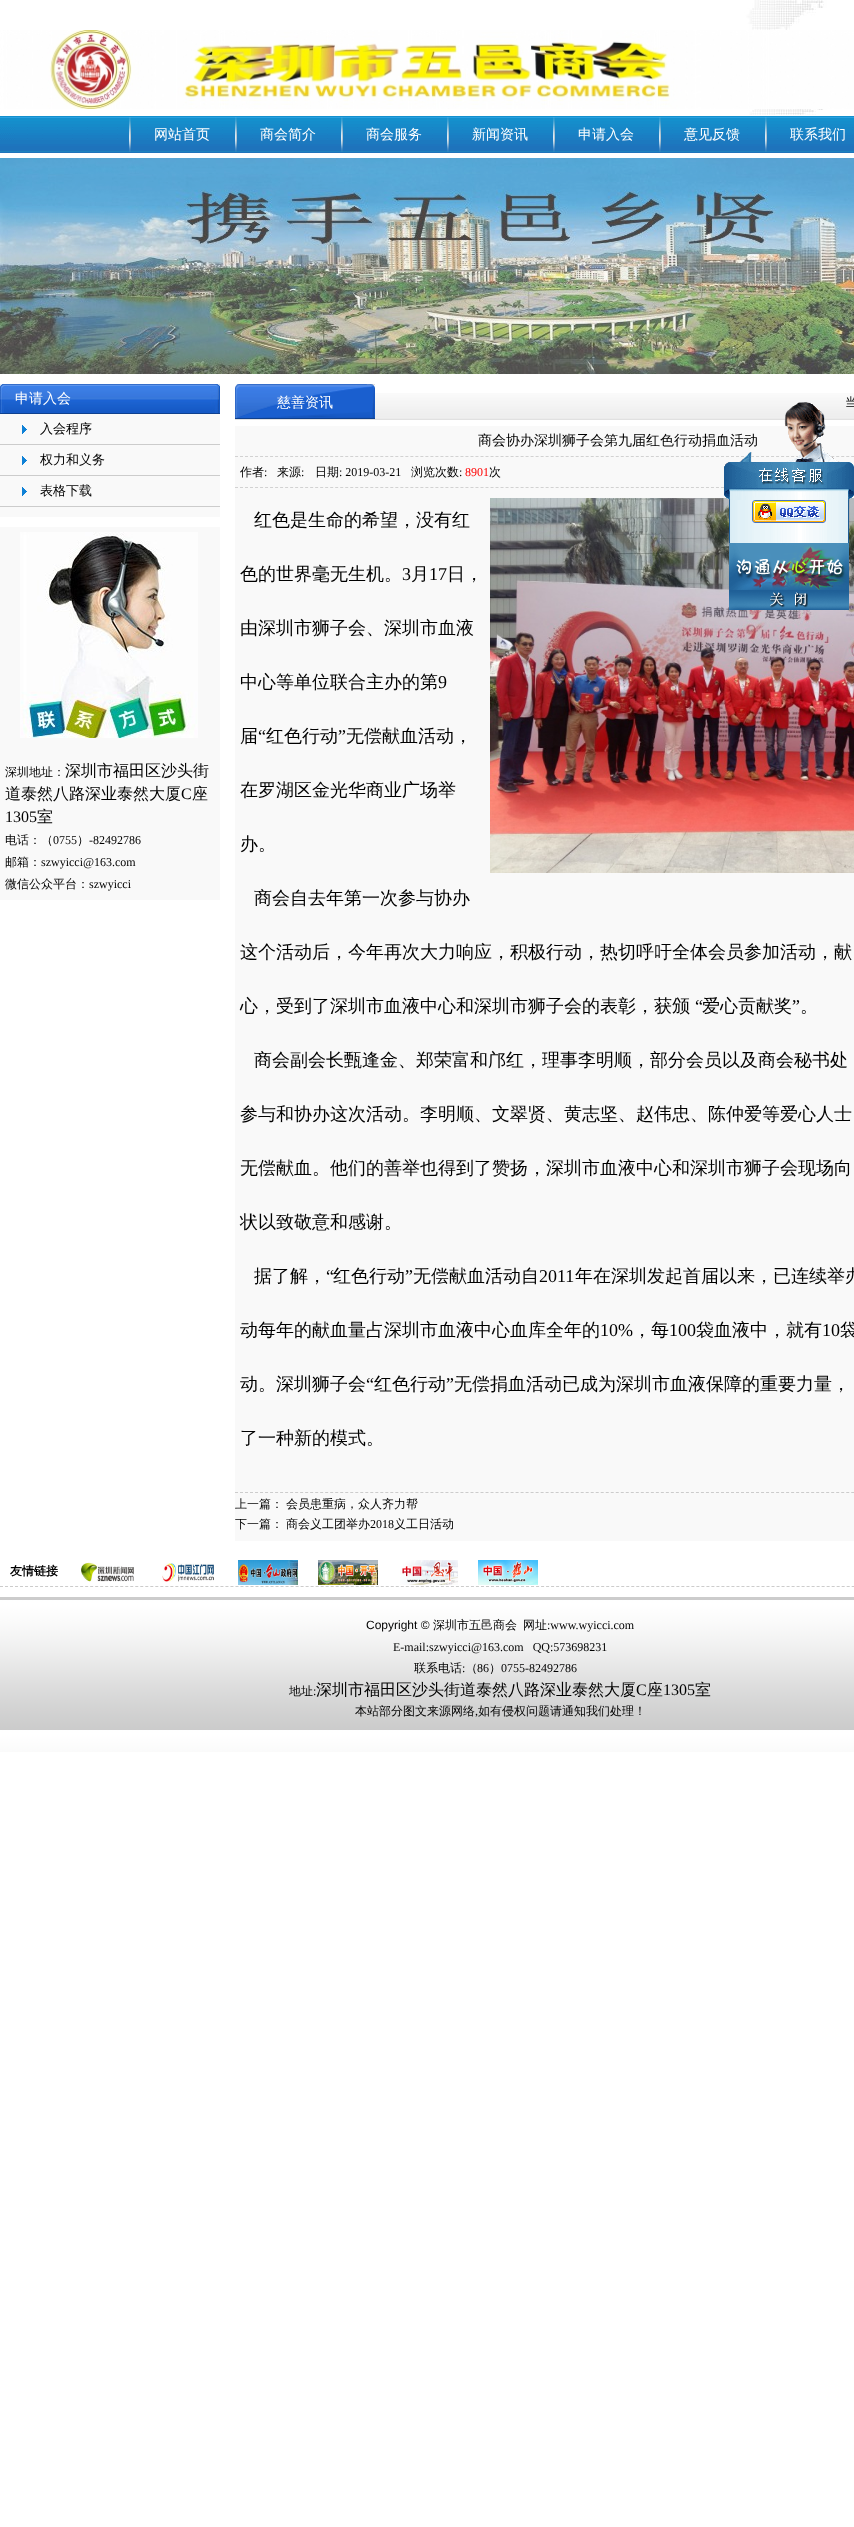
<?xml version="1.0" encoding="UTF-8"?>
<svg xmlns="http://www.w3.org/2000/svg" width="854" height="2527">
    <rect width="100%" height="100%" fill="#FFFFFF"/>
    <image x="0" y="0" width="854" height="116" href="img_01.png"/>
    <image x="0" y="30" width="854" height="79" href="img_02.png"/>
    <image x="0" y="116" width="15" height="37" href="img_03.png"/>
    <image x="15" y="115" width="839" height="38" href="img_04.png"/>
    <image x="129" y="117" width="2" height="35" href="img_05.png"/>
    <text x="154" y="139" font-family="WenQuanYi Zen Hei" font-size="14" font-weight="500" fill="#FFFFFF">网站首页</text>
    <image x="235" y="117" width="2" height="35" href="img_05.png"/>
    <text x="260" y="139" font-family="WenQuanYi Zen Hei" font-size="14" font-weight="500" fill="#FFFFFF">商会简介</text>
    <image x="341" y="117" width="2" height="35" href="img_06.png"/>
    <text x="366" y="139" font-family="WenQuanYi Zen Hei" font-size="14" font-weight="500" fill="#FFFFFF">商会服务</text>
    <image x="447" y="117" width="2" height="35" href="img_07.png"/>
    <text x="472" y="139" font-family="WenQuanYi Zen Hei" font-size="14" font-weight="500" fill="#FFFFFF">新闻资讯</text>
    <image x="553" y="117" width="2" height="35" href="img_05.png"/>
    <text x="578" y="139" font-family="WenQuanYi Zen Hei" font-size="14" font-weight="500" fill="#FFFFFF">申请入会</text>
    <image x="659" y="117" width="2" height="35" href="img_05.png"/>
    <text x="684" y="139" font-family="WenQuanYi Zen Hei" font-size="14" font-weight="500" fill="#FFFFFF">意见反馈</text>
    <image x="765" y="117" width="2" height="35" href="img_05.png"/>
    <text x="790" y="139" font-family="WenQuanYi Zen Hei" font-size="14" font-weight="500" fill="#FFFFFF">联系我们</text>
    <image x="0" y="158" width="854" height="216" href="img_08.png"/>
    <image x="0" y="384" width="15" height="30" href="img_09.png"/>
    <image x="205" y="384" width="15" height="30" href="img_10.png"/>
    <image x="15" y="384" width="190" height="30" href="img_11.png"/>
    <text x="15" y="403" font-family="WenQuanYi Zen Hei" font-size="14" font-weight="500" fill="#FFFFFF">申请入会</text>
    <rect x="0" y="414" width="220" height="103" fill="#F9F9F9"/>
    <image x="22" y="425" width="5" height="9" href="img_12.png"/>
    <rect x="0" y="444" width="220" height="1" fill="#CCCCCC"/>
    <text x="40" y="433" font-family="WenQuanYi Zen Hei" font-size="13" font-weight="500" fill="#000000">入会程序</text>
    <image x="22" y="456" width="5" height="9" href="img_12.png"/>
    <rect x="0" y="475" width="220" height="1" fill="#CCCCCC"/>
    <text x="40" y="464" font-family="WenQuanYi Zen Hei" font-size="13" font-weight="500" fill="#000000">权力和义务</text>
    <image x="22" y="487" width="5" height="9" href="img_12.png"/>
    <rect x="0" y="506" width="220" height="1" fill="#CCCCCC"/>
    <text x="40" y="495" font-family="WenQuanYi Zen Hei" font-size="13" font-weight="500" fill="#000000">表格下载</text>
    <rect x="0" y="527" width="220" height="373" fill="#F9F9F9"/>
    <image x="20" y="532" width="178" height="206" href="img_13.png"/>
    <text x="5" y="776" font-family="WenQuanYi Zen Hei" font-size="12" font-weight="500" fill="#000000">深圳地址：</text>
    <text x="65" y="776" font-family="WenQuanYi Zen Hei" font-size="16" font-weight="500" fill="#000000">深圳市福田区沙头街</text>
    <text x="5" y="799" font-family="WenQuanYi Zen Hei" font-size="16" font-weight="500" fill="#000000">道泰然八路深业泰然大厦</text>
    <text x="181" y="799" font-family="Liberation Serif" font-size="16" fill="#000000">C</text>
    <text x="192" y="799" font-family="WenQuanYi Zen Hei" font-size="16" font-weight="500" fill="#000000">座</text>
    <text x="5" y="822" font-family="Liberation Serif" font-size="16" fill="#000000">1305</text>
    <text x="37" y="822" font-family="WenQuanYi Zen Hei" font-size="16" font-weight="500" fill="#000000">室</text>
    <text x="5" y="844" font-family="WenQuanYi Zen Hei" font-size="12" font-weight="500" fill="#000000">电话：（</text>
    <text x="53" y="844" font-family="Liberation Serif" font-size="12" fill="#000000">0755</text>
    <text x="77" y="844" font-family="WenQuanYi Zen Hei" font-size="12" font-weight="500" fill="#000000">）</text>
    <text x="89" y="844" font-family="Liberation Serif" font-size="12" fill="#000000">-82492786</text>
    <text x="5" y="866" font-family="WenQuanYi Zen Hei" font-size="12" font-weight="500" fill="#000000">邮箱：</text>
    <text x="41" y="866" font-family="Liberation Serif" font-size="12" fill="#000000">szwyicci@163.com</text>
    <text x="5" y="888" font-family="WenQuanYi Zen Hei" font-size="12" font-weight="500" fill="#000000">微信公众平台：</text>
    <text x="89" y="888" font-family="Liberation Serif" font-size="12" fill="#000000">szwyicci</text>
    <image x="235" y="419" width="19" height="1" href="img_14.png"/>
    <image x="254" y="393" width="600" height="27" href="img_15.png"/>
    <image x="235" y="384" width="140" height="35" href="img_16.png"/>
    <text x="277" y="407" font-family="WenQuanYi Zen Hei" font-size="14" font-weight="500" fill="#FFFFFF">慈善资讯</text>
    <text x="845" y="406" font-family="WenQuanYi Zen Hei" font-size="12" font-weight="500" fill="#000000">当</text>
    <rect x="235" y="426" width="619" height="1115" fill="#F9F9F9"/>
    <path d="M 235 456.5 H 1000" fill="none" stroke="#D2D2D2" stroke-dasharray="3 2.01"/>
    <text x="478" y="445" font-family="WenQuanYi Zen Hei" font-size="14" font-weight="500" fill="#000000">商会协办深圳狮子会第九届红色行动捐血活动</text>
    <path d="M 235 487.5 H 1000" fill="none" stroke="#D2D2D2" stroke-dasharray="3 2.01"/>
    <text x="240" y="476" font-family="WenQuanYi Zen Hei" font-size="12" font-weight="500" fill="#000000">作者</text>
    <text x="264" y="476" font-family="Liberation Serif" font-size="12" fill="#000000">:</text>
    <text x="277" y="476" font-family="WenQuanYi Zen Hei" font-size="12" font-weight="500" fill="#000000">来源</text>
    <text x="301" y="476" font-family="Liberation Serif" font-size="12" fill="#000000">:</text>
    <text x="315" y="476" font-family="WenQuanYi Zen Hei" font-size="12" font-weight="500" fill="#000000">日期</text>
    <text x="339" y="476" font-family="Liberation Serif" font-size="12" fill="#000000">: 2019-03-21</text>
    <text x="411" y="476" font-family="WenQuanYi Zen Hei" font-size="12" font-weight="500" fill="#000000">浏览次数</text>
    <text x="459" y="476" font-family="Liberation Serif" font-size="12" fill="#000000">:</text>
    <text x="465" y="476" font-family="Liberation Serif" font-size="12" fill="#FF0000">8901</text>
    <text x="489" y="476" font-family="WenQuanYi Zen Hei" font-size="12" font-weight="500" fill="#000000">次</text>
    <text x="254" y="526" font-family="WenQuanYi Zen Hei" font-size="18" font-weight="500" fill="#000000">红色是生命的希望，没有红</text>
    <image x="490" y="498" width="364" height="375" href="img_17.png"/>
    <text x="240" y="580" font-family="WenQuanYi Zen Hei" font-size="18" font-weight="500" fill="#000000">色的世界毫无生机。</text>
    <text x="402" y="580" font-family="Liberation Serif" font-size="18" fill="#000000">3</text>
    <text x="411" y="580" font-family="WenQuanYi Zen Hei" font-size="18" font-weight="500" fill="#000000">月</text>
    <text x="429" y="580" font-family="Liberation Serif" font-size="18" fill="#000000">17</text>
    <text x="447" y="580" font-family="WenQuanYi Zen Hei" font-size="18" font-weight="500" fill="#000000">日，</text>
    <text x="240" y="634" font-family="WenQuanYi Zen Hei" font-size="18" font-weight="500" fill="#000000">由深圳市狮子会、深圳市血液</text>
    <text x="240" y="688" font-family="WenQuanYi Zen Hei" font-size="18" font-weight="500" fill="#000000">中心等单位联合主办的第</text>
    <text x="438" y="688" font-family="Liberation Serif" font-size="18" fill="#000000">9</text>
    <text x="240" y="742" font-family="WenQuanYi Zen Hei" font-size="18" font-weight="500" fill="#000000">届</text>
    <text x="258" y="742" font-family="Liberation Serif" font-size="18" fill="#000000">“</text>
    <text x="266" y="742" font-family="WenQuanYi Zen Hei" font-size="18" font-weight="500" fill="#000000">红色行动</text>
    <text x="338" y="742" font-family="Liberation Serif" font-size="18" fill="#000000">”</text>
    <text x="346" y="742" font-family="WenQuanYi Zen Hei" font-size="18" font-weight="500" fill="#000000">无偿献血活动，</text>
    <text x="240" y="796" font-family="WenQuanYi Zen Hei" font-size="18" font-weight="500" fill="#000000">在罗湖区金光华商业广场举</text>
    <text x="240" y="850" font-family="WenQuanYi Zen Hei" font-size="18" font-weight="500" fill="#000000">办。</text>
    <text x="254" y="904" font-family="WenQuanYi Zen Hei" font-size="18" font-weight="500" fill="#000000">商会自去年第一次参与协办</text>
    <text x="240" y="958" font-family="WenQuanYi Zen Hei" font-size="18" font-weight="500" fill="#000000">这个活动后，今年再次大力响应，积极行动，热切呼吁全体会员参加活动，献</text>
    <text x="240" y="1012" font-family="WenQuanYi Zen Hei" font-size="18" font-weight="500" fill="#000000">心，受到了深圳市血液中心和深圳市狮子会的表彰，获颁</text>
    <text x="695" y="1012" font-family="Liberation Serif" font-size="18" fill="#000000">“</text>
    <text x="702" y="1012" font-family="WenQuanYi Zen Hei" font-size="18" font-weight="500" fill="#000000">爱心贡献奖</text>
    <text x="792" y="1012" font-family="Liberation Serif" font-size="18" fill="#000000">”</text>
    <text x="800" y="1012" font-family="WenQuanYi Zen Hei" font-size="18" font-weight="500" fill="#000000">。</text>
    <text x="254" y="1066" font-family="WenQuanYi Zen Hei" font-size="18" font-weight="500" fill="#000000">商会副会长甄逢金、郑荣富和邝红，理事李明顺，部分会员以及商会秘书处</text>
    <text x="240" y="1120" font-family="WenQuanYi Zen Hei" font-size="18" font-weight="500" fill="#000000">参与和协办这次活动。李明顺、文翠贤、黄志坚、赵伟忠、陈仲爱等爱心人士</text>
    <text x="240" y="1174" font-family="WenQuanYi Zen Hei" font-size="18" font-weight="500" fill="#000000">无偿献血。他们的善举也得到了赞扬，深圳市血液中心和深圳市狮子会现场向</text>
    <text x="240" y="1228" font-family="WenQuanYi Zen Hei" font-size="18" font-weight="500" fill="#000000">状以致敬意和感谢。</text>
    <text x="254" y="1282" font-family="WenQuanYi Zen Hei" font-size="18" font-weight="500" fill="#000000">据了解，</text>
    <text x="326" y="1282" font-family="Liberation Serif" font-size="18" fill="#000000">“</text>
    <text x="333" y="1282" font-family="WenQuanYi Zen Hei" font-size="18" font-weight="500" fill="#000000">红色行动</text>
    <text x="405" y="1282" font-family="Liberation Serif" font-size="18" fill="#000000">”</text>
    <text x="413" y="1282" font-family="WenQuanYi Zen Hei" font-size="18" font-weight="500" fill="#000000">无偿献血活动自</text>
    <text x="539" y="1282" font-family="Liberation Serif" font-size="18" fill="#000000">2011</text>
    <text x="575" y="1282" font-family="WenQuanYi Zen Hei" font-size="18" font-weight="500" fill="#000000">年在深圳发起首届以来，已连续举办</text>
    <text x="240" y="1336" font-family="WenQuanYi Zen Hei" font-size="18" font-weight="500" fill="#000000">动每年的献血量占深圳市血液中心血库全年的</text>
    <text x="600" y="1336" font-family="Liberation Serif" font-size="18" fill="#000000">10%</text>
    <text x="633" y="1336" font-family="WenQuanYi Zen Hei" font-size="18" font-weight="500" fill="#000000">，每</text>
    <text x="669" y="1336" font-family="Liberation Serif" font-size="18" fill="#000000">100</text>
    <text x="696" y="1336" font-family="WenQuanYi Zen Hei" font-size="18" font-weight="500" fill="#000000">袋血液中，就有</text>
    <text x="822" y="1336" font-family="Liberation Serif" font-size="18" fill="#000000">10</text>
    <text x="840" y="1336" font-family="WenQuanYi Zen Hei" font-size="18" font-weight="500" fill="#000000">袋</text>
    <text x="240" y="1390" font-family="WenQuanYi Zen Hei" font-size="18" font-weight="500" fill="#000000">动。深圳狮子会</text>
    <text x="366" y="1390" font-family="Liberation Serif" font-size="18" fill="#000000">“</text>
    <text x="374" y="1390" font-family="WenQuanYi Zen Hei" font-size="18" font-weight="500" fill="#000000">红色行动</text>
    <text x="446" y="1390" font-family="Liberation Serif" font-size="18" fill="#000000">”</text>
    <text x="454" y="1390" font-family="WenQuanYi Zen Hei" font-size="18" font-weight="500" fill="#000000">无偿捐血活动已成为深圳市血液保障的重要力量，</text>
    <text x="240" y="1444" font-family="WenQuanYi Zen Hei" font-size="18" font-weight="500" fill="#000000">了一种新的模式。</text>
    <path d="M 235 1492.5 H 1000" fill="none" stroke="#CCCCCC" stroke-dasharray="3 2.01"/>
    <text x="235" y="1508" font-family="WenQuanYi Zen Hei" font-size="12" font-weight="500" fill="#000000">上一篇：</text>
    <text x="286" y="1508" font-family="WenQuanYi Zen Hei" font-size="12" font-weight="500" fill="#000000">会员患重病，众人齐力帮</text>
    <text x="235" y="1528" font-family="WenQuanYi Zen Hei" font-size="12" font-weight="500" fill="#000000">下一篇：</text>
    <text x="286" y="1528" font-family="WenQuanYi Zen Hei" font-size="12" font-weight="500" fill="#000000">商会义工团举办</text>
    <text x="370" y="1528" font-family="Liberation Serif" font-size="12" fill="#000000">2018</text>
    <text x="394" y="1528" font-family="WenQuanYi Zen Hei" font-size="12" font-weight="500" fill="#000000">义工日活动</text>
    <image x="724" y="402" width="130" height="98" href="img_18.png"/>
    <image x="729" y="500" width="120" height="43" href="img_19.png"/>
    <image x="752" y="500" width="74" height="23" href="img_20.png"/>
    <image x="729" y="543" width="120" height="47" href="img_21.png"/>
    <image x="729" y="590" width="120" height="20" href="img_22.png"/>
    <path d="M 0 1586.5 H 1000" fill="none" stroke="#CCCCCC" stroke-dasharray="3 2.01"/>
    <text x="10" y="1575" font-family="WenQuanYi Zen Hei" font-size="12" font-weight="700" fill="#000000">友情链接</text>
    <image x="81" y="1562" width="53" height="20" href="img_23.png"/>
    <image x="162" y="1563" width="52" height="19" href="img_24.png"/>
    <image x="238" y="1560" width="60" height="25" href="img_25.png"/>
    <image x="318" y="1560" width="60" height="25" href="img_26.png"/>
    <image x="400" y="1560" width="58" height="25" href="img_27.png"/>
    <image x="478" y="1560" width="60" height="25" href="img_28.png"/>
    <image x="0" y="1597" width="854" height="155" href="img_29.png"/>
    <text x="366" y="1629" font-family="Liberation Sans" font-size="12" fill="#000000">Copyright ©</text>
    <text x="433" y="1629" font-family="WenQuanYi Zen Hei" font-size="12" font-weight="500" fill="#000000">深圳市五邑商会</text>
    <text x="523" y="1629" font-family="WenQuanYi Zen Hei" font-size="12" font-weight="500" fill="#000000">网址</text>
    <text x="547" y="1629" font-family="Liberation Serif" font-size="12" fill="#000000">:www.wyicci.com</text>
    <text x="393" y="1651" font-family="Liberation Serif" font-size="12" fill="#000000" xml:space="preserve">E-mail:szwyicci@163.com   QQ:573698231</text>
    <text x="414" y="1672" font-family="WenQuanYi Zen Hei" font-size="12" font-weight="500" fill="#000000">联系电话 （</text>
    <text x="477" y="1672" font-family="Liberation Serif" font-size="12" fill="#000000">86</text>
    <text x="489" y="1672" font-family="WenQuanYi Zen Hei" font-size="12" font-weight="500" fill="#000000">）</text>
    <text x="501" y="1672" font-family="Liberation Serif" font-size="12" fill="#000000">0755-82492786</text>
    <text x="462" y="1672" font-family="Liberation Serif" font-size="12" fill="#000000">:</text>
    <text x="289" y="1695" font-family="WenQuanYi Zen Hei" font-size="12" font-weight="500" fill="#000000">地址</text>
    <text x="313" y="1695" font-family="Liberation Serif" font-size="12" fill="#000000">:</text>
    <text x="316" y="1695" font-family="WenQuanYi Zen Hei" font-size="16" font-weight="500" fill="#000000">深圳市福田区沙头街道泰然八路深业泰然大厦</text>
    <text x="636" y="1695" font-family="Liberation Serif" font-size="16" fill="#000000">C</text>
    <text x="647" y="1695" font-family="WenQuanYi Zen Hei" font-size="16" font-weight="500" fill="#000000">座</text>
    <text x="663" y="1695" font-family="Liberation Serif" font-size="16" fill="#000000">1305</text>
    <text x="695" y="1695" font-family="WenQuanYi Zen Hei" font-size="16" font-weight="500" fill="#000000">室</text>
    <text x="355" y="1715" font-family="WenQuanYi Zen Hei" font-size="12" font-weight="500" fill="#000000">本站部分图文来源网络</text>
    <text x="475" y="1715" font-family="Liberation Serif" font-size="12" fill="#000000">,</text>
    <text x="478" y="1715" font-family="WenQuanYi Zen Hei" font-size="12" font-weight="500" fill="#000000">如有侵权问题请通知我们处理！</text>
</svg>
